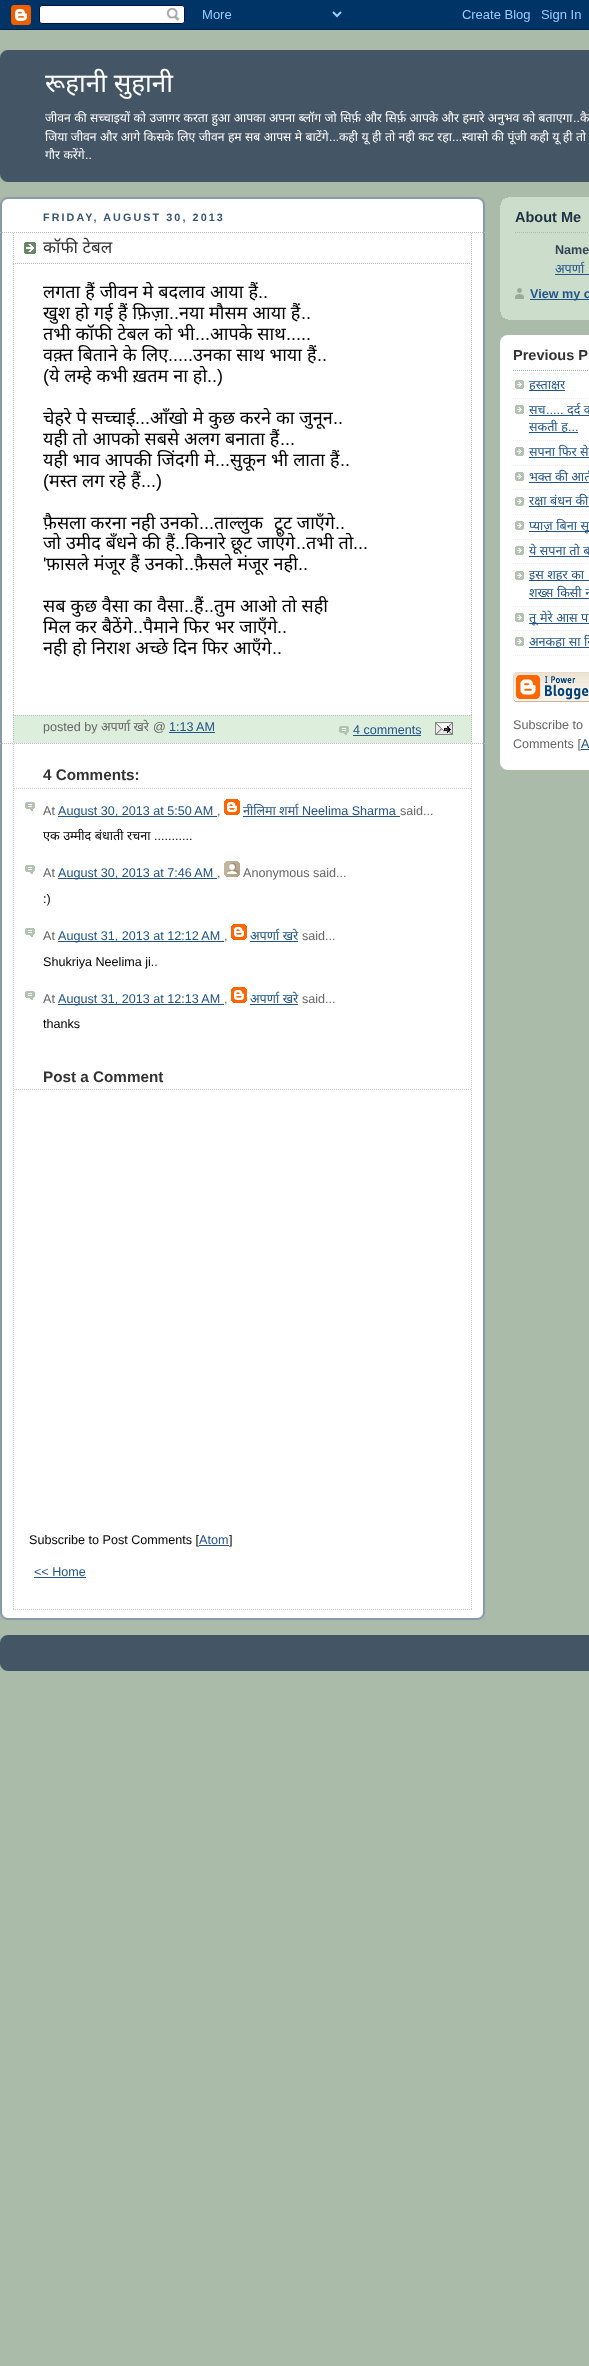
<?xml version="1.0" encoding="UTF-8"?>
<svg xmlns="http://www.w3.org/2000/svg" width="589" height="2366">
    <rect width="100%" height="100%" fill="#AABBAA"/>
    <image x="0" y="0" width="589" height="30" href="img_01.png"/>
    <rect x="0" y="50" width="589" height="132" fill="#445566"/>
    <image x="0" y="50" width="8" height="8" href="img_02.png"/>
    <image x="0" y="174" width="8" height="8" href="img_03.png"/>
    <text x="45" y="92" font-family="Noto Sans" font-size="26" fill="#FFFFFF">रूहानी सुहानी</text>
    <text x="45" y="122" word-spacing="0.25" font-family="Noto Sans" font-size="12.2" fill="#FFFFFF">जीवन की सच्चाइयों को उजागर करता हुआ आपका अपना ब्लॉग जो सिर्फ़ और सिर्फ़ आपके और हमारे अनुभव को बताएगा</text>
    <text x="573" y="122" font-family="Liberation Sans" font-size="12.2" fill="#FFFFFF">..</text>
    <text x="580" y="122" word-spacing="0.25" font-family="Noto Sans" font-size="12.2" fill="#FFFFFF">कै</text>
    <text x="45" y="141" word-spacing="0.25" font-family="Noto Sans" font-size="12.2" fill="#FFFFFF">जिया जीवन और आगे किसके लिए जीवन हम सब आपस मे बाटेंगे</text>
    <text x="329" y="141" font-family="Liberation Sans" font-size="12.2" fill="#FFFFFF">...</text>
    <text x="339" y="141" word-spacing="0.25" font-family="Noto Sans" font-size="12.2" fill="#FFFFFF">कही यू ही तो नही कट रहा</text>
    <text x="452" y="141" font-family="Liberation Sans" font-size="12.2" fill="#FFFFFF">...</text>
    <text x="462" y="141" word-spacing="0.25" font-family="Noto Sans" font-size="12.2" fill="#FFFFFF">स्वासो की पूंजी कही यू ही तो</text>
    <text x="45" y="159" word-spacing="0.25" font-family="Noto Sans" font-size="12.2" fill="#FFFFFF">गौर करेंगे</text>
    <text x="85" y="159" font-family="Liberation Sans" font-size="12.2" fill="#FFFFFF">..</text>
    <rect x="2" y="199" width="481" height="1419" fill="#FFFFFF"/>
    <image x="0" y="1570" width="485" height="50" href="img_04.png"/>
    <image x="0" y="197" width="485" height="50" href="img_05.png"/>
    <image x="0" y="247" width="485" height="1323" href="img_06.png"/>
    <text x="43" y="221" font-family="Liberation Sans" font-size="10.75" font-weight="700" letter-spacing="2.1" fill="#335577">FRIDAY, AUGUST 30, 2013</text>
    <path d="M 0 232.5 H 485" fill="none" stroke="#BBBBBB" stroke-dasharray="1 1"/>
    <path d="M 0 743.5 H 485" fill="none" stroke="#BBBBBB" stroke-dasharray="1 1"/>
    <image x="24" y="242" width="12" height="12" href="img_07.png"/>
    <path d="M 471.5 233 V 264" fill="none" stroke="#BBBBBB" stroke-dasharray="1 1"/>
    <path d="M 13 263.5 H 472" fill="none" stroke="#BBBBBB" stroke-dasharray="1 1"/>
    <path d="M 13.5 233 V 264" fill="none" stroke="#BBBBBB" stroke-dasharray="1 1"/>
    <text x="43" y="253" font-family="Noto Sans" font-size="17" fill="#333333">कॉफी टेबल</text>
    <path d="M 471.5 264 V 715" fill="none" stroke="#BBBBBB" stroke-dasharray="1 1"/>
    <path d="M 13.5 264 V 715" fill="none" stroke="#BBBBBB" stroke-dasharray="1 1"/>
    <text x="43" y="298" word-spacing="0.25" font-family="Noto Sans" font-size="18" fill="#000000">लगता हैं जीवन मे बदलाव आया हैं</text>
    <text x="258" y="298" font-family="Liberation Sans" font-size="18" fill="#000000">..</text>
    <text x="43" y="319" word-spacing="0.25" font-family="Noto Sans" font-size="18" fill="#000000">खुश हो गई हैं फ़िज़ा</text>
    <text x="169" y="319" font-family="Liberation Sans" font-size="18" fill="#000000">..</text>
    <text x="179" y="319" word-spacing="0.25" font-family="Noto Sans" font-size="18" fill="#000000">नया मौसम आया हैं</text>
    <text x="301" y="319" font-family="Liberation Sans" font-size="18" fill="#000000">..</text>
    <text x="43" y="340" word-spacing="0.25" font-family="Noto Sans" font-size="18" fill="#000000">तभी कॉफी टेबल को भी</text>
    <text x="195" y="340" font-family="Liberation Sans" font-size="18" fill="#000000">...</text>
    <text x="210" y="340" word-spacing="0.25" font-family="Noto Sans" font-size="18" fill="#000000">आपके साथ</text>
    <text x="286" y="340" font-family="Liberation Sans" font-size="18" fill="#000000">.....</text>
    <text x="43" y="361" word-spacing="0.25" font-family="Noto Sans" font-size="18" fill="#000000">वक़्त बिताने के लिए</text>
    <text x="168" y="361" font-family="Liberation Sans" font-size="18" fill="#000000">.....</text>
    <text x="193" y="361" word-spacing="0.25" font-family="Noto Sans" font-size="18" fill="#000000">उनका साथ भाया हैं</text>
    <text x="317" y="361" font-family="Liberation Sans" font-size="18" fill="#000000">..</text>
    <text x="43" y="382" font-family="Liberation Sans" font-size="18" fill="#000000">(</text>
    <text x="49" y="382" word-spacing="0.25" font-family="Noto Sans" font-size="18" fill="#000000">ये लम्हे कभी ख़तम ना हो</text>
    <text x="207" y="382" font-family="Liberation Sans" font-size="18" fill="#000000">..)</text>
    <text x="43" y="424" word-spacing="0.25" font-family="Noto Sans" font-size="18" fill="#000000">चेहरे पे सच्चाई</text>
    <text x="135" y="424" font-family="Liberation Sans" font-size="18" fill="#000000">...</text>
    <text x="150" y="424" word-spacing="0.25" font-family="Noto Sans" font-size="18" fill="#000000">आँखो मे कुछ करने का जुनून</text>
    <text x="333" y="424" font-family="Liberation Sans" font-size="18" fill="#000000">..</text>
    <text x="43" y="445" word-spacing="0.25" font-family="Noto Sans" font-size="18" fill="#000000">यही तो आपको सबसे अलग बनाता हैं</text>
    <text x="280" y="445" font-family="Liberation Sans" font-size="18" fill="#000000">...</text>
    <text x="43" y="466" word-spacing="0.25" font-family="Noto Sans" font-size="18" fill="#000000">यही भाव आपकी जिंदगी मे</text>
    <text x="215" y="466" font-family="Liberation Sans" font-size="18" fill="#000000">...</text>
    <text x="230" y="466" word-spacing="0.25" font-family="Noto Sans" font-size="18" fill="#000000">सुकून भी लाता हैं</text>
    <text x="340" y="466" font-family="Liberation Sans" font-size="18" fill="#000000">..</text>
    <text x="43" y="487" font-family="Liberation Sans" font-size="18" fill="#000000">(</text>
    <text x="49" y="487" word-spacing="0.25" font-family="Noto Sans" font-size="18" fill="#000000">मस्त लग रहे हैं</text>
    <text x="141" y="487" font-family="Liberation Sans" font-size="18" fill="#000000">...)</text>
    <text x="43" y="529" font-family="Noto Sans" font-size="18" fill="#000000">फ़ैसला करना नही उनको</text>
    <text x="199" y="529" font-family="Liberation Sans" font-size="18" fill="#000000">...</text>
    <text x="214" y="529" font-family="Noto Sans" font-size="18" fill="#000000">ताल्लुक</text>
    <text x="274" y="529" font-family="Noto Sans" font-size="18" fill="#000000">टूट जाएँगे</text>
    <text x="335" y="529" font-family="Liberation Sans" font-size="18" fill="#000000">..</text>
    <text x="43" y="549" word-spacing="0.25" font-family="Noto Sans" font-size="18" fill="#000000">जो उमीद बँधने की हैं</text>
    <text x="175" y="549" font-family="Liberation Sans" font-size="18" fill="#000000">..</text>
    <text x="185" y="549" word-spacing="0.25" font-family="Noto Sans" font-size="18" fill="#000000">किनारे छूट जाएँगे</text>
    <text x="296" y="549" font-family="Liberation Sans" font-size="18" fill="#000000">..</text>
    <text x="306" y="549" word-spacing="0.25" font-family="Noto Sans" font-size="18" fill="#000000">तभी तो</text>
    <text x="353" y="549" font-family="Liberation Sans" font-size="18" fill="#000000">...</text>
    <text x="43" y="570" font-family="Liberation Sans" font-size="18" fill="#000000">'</text>
    <text x="46" y="570" word-spacing="0.25" font-family="Noto Sans" font-size="18" fill="#000000">फ़ासले मंजूर हैं उनको</text>
    <text x="184" y="570" font-family="Liberation Sans" font-size="18" fill="#000000">..</text>
    <text x="194" y="570" word-spacing="0.25" font-family="Noto Sans" font-size="18" fill="#000000">फ़ैसले मंजूर नही</text>
    <text x="298" y="570" font-family="Liberation Sans" font-size="18" fill="#000000">..</text>
    <text x="43" y="612" word-spacing="0.25" font-family="Noto Sans" font-size="18" fill="#000000">सब कुछ वैसा का वैसा</text>
    <text x="184" y="612" font-family="Liberation Sans" font-size="18" fill="#000000">..</text>
    <text x="194" y="612" font-family="Noto Sans" font-size="18" fill="#000000">हैं</text>
    <text x="204" y="612" font-family="Liberation Sans" font-size="18" fill="#000000">..</text>
    <text x="214" y="612" word-spacing="0.25" font-family="Noto Sans" font-size="18" fill="#000000">तुम आओ तो सही</text>
    <text x="43" y="633" word-spacing="0.25" font-family="Noto Sans" font-size="18" fill="#000000">मिल कर बैठेंगे</text>
    <text x="133" y="633" font-family="Liberation Sans" font-size="18" fill="#000000">..</text>
    <text x="143" y="633" word-spacing="0.25" font-family="Noto Sans" font-size="18" fill="#000000">पैमाने फिर भर जाएँगे</text>
    <text x="277" y="633" font-family="Liberation Sans" font-size="18" fill="#000000">..</text>
    <text x="43" y="654" word-spacing="0.25" font-family="Noto Sans" font-size="18" fill="#000000">नही हो निराश अच्छे दिन फिर आएँगे</text>
    <text x="272" y="654" font-family="Liberation Sans" font-size="18" fill="#000000">..</text>
    <rect x="13" y="715" width="459" height="28" fill="#DDEEDD"/>
    <path d="M 13 715.5 H 472" fill="none" stroke="#BBBBBB" stroke-dasharray="1 1"/>
    <path d="M 471.5 715 V 743" fill="none" stroke="#BBBBBB" stroke-dasharray="1 1"/>
    <path d="M 13.5 715 V 743" fill="none" stroke="#BBBBBB" stroke-dasharray="1 1"/>
    <text x="43" y="731" font-family="Liberation Sans" font-size="12.6" fill="#666666">posted by</text>
    <text x="101" y="731" font-family="Noto Sans" font-size="12.6" fill="#666666">अपर्णा खरे</text>
    <text x="153" y="731" font-family="Liberation Sans" font-size="12.6" fill="#666666">@</text>
    <text x="169" y="731" font-family="Liberation Sans" font-size="12.6" fill="#225588">1:13 AM</text>
    <rect x="169" y="732" width="46" height="1" fill="#225588"/>
    <image x="339" y="726" width="10" height="9" href="img_08.png"/>
    <text x="353" y="734" font-family="Liberation Sans" font-size="12.6" fill="#225588">4 comments</text>
    <rect x="353" y="735" width="68" height="1" fill="#225588"/>
    <image x="435" y="722" width="18" height="13" href="img_09.png"/>
    <path d="M 471.5 744 V 1610" fill="none" stroke="#CCCCCC" stroke-dasharray="1 1"/>
    <path d="M 13 1609.5 H 472" fill="none" stroke="#CCCCCC" stroke-dasharray="1 1"/>
    <path d="M 13.5 744 V 1610" fill="none" stroke="#CCCCCC" stroke-dasharray="1 1"/>
    <path d="M 14 788.5 H 471" fill="none" stroke="#CCCCCC" stroke-dasharray="1 1"/>
    <text x="43" y="780" font-family="Liberation Sans" font-size="15.25" font-weight="700" fill="#333333">4 Comments:</text>
    <image x="25" y="802" width="10" height="9" href="img_10.png"/>
    <text x="43" y="815" font-family="Liberation Sans" font-size="12.6" fill="#666666">At</text>
    <rect x="58" y="816" width="159" height="1" fill="#225588"/>
    <text x="58" y="815" font-family="Liberation Sans" font-size="12.6" fill="#225588">August 30, 2013 at 5:50 AM</text>
    <text x="217" y="815" font-family="Liberation Sans" font-size="12.6" fill="#666666">,</text>
    <image x="224" y="799" width="16" height="16" href="img_11.png"/>
    <text x="243" y="815" font-family="Noto Sans" font-size="12.6" fill="#225588">नीलिमा शर्मा</text>
    <text x="302" y="815" font-family="Liberation Sans" font-size="12.6" fill="#225588">Neelima Sharma</text>
    <rect x="243" y="816" width="157" height="1" fill="#225588"/>
    <text x="400" y="815" font-family="Liberation Sans" font-size="12.6" fill="#666666">said...</text>
    <text x="43" y="840" word-spacing="0.25" font-family="Noto Sans" font-size="12.6" fill="#000000">एक उम्मीद बंधाती रचना</text>
    <text x="154" y="840" font-family="Liberation Sans" font-size="12.6" fill="#000000">...........</text>
    <image x="25" y="865" width="10" height="9" href="img_10.png"/>
    <text x="43" y="877" font-family="Liberation Sans" font-size="12.6" fill="#666666">At</text>
    <rect x="58" y="878" width="159" height="1" fill="#225588"/>
    <text x="58" y="877" font-family="Liberation Sans" font-size="12.6" fill="#225588">August 30, 2013 at 7:46 AM</text>
    <text x="217" y="877" font-family="Liberation Sans" font-size="12.6" fill="#666666">,</text>
    <image x="224" y="861" width="16" height="16" href="img_12.png"/>
    <text x="243" y="877" font-family="Liberation Sans" font-size="12.6" fill="#666666">Anonymous said...</text>
    <text x="43" y="903" font-family="Liberation Sans" font-size="12.6" fill="#000000">:)</text>
    <image x="25" y="928" width="10" height="9" href="img_10.png"/>
    <text x="43" y="940" font-family="Liberation Sans" font-size="12.6" fill="#666666">At</text>
    <rect x="58" y="941" width="166" height="1" fill="#225588"/>
    <text x="58" y="940" font-family="Liberation Sans" font-size="12.6" fill="#225588">August 31, 2013 at 12:12 AM</text>
    <text x="224" y="940" font-family="Liberation Sans" font-size="12.6" fill="#666666">,</text>
    <image x="231" y="924" width="16" height="16" href="img_11.png"/>
    <text x="250" y="940" word-spacing="0.25" font-family="Noto Sans" font-size="12.6" fill="#225588">अपर्णा खरे</text>
    <rect x="250" y="941" width="48" height="1" fill="#225588"/>
    <text x="302" y="940" font-family="Liberation Sans" font-size="12.6" fill="#666666">said...</text>
    <text x="43" y="966" font-family="Liberation Sans" font-size="12.6" fill="#000000">Shukriya Neelima ji..</text>
    <image x="25" y="991" width="10" height="9" href="img_10.png"/>
    <text x="43" y="1003" font-family="Liberation Sans" font-size="12.6" fill="#666666">At</text>
    <rect x="58" y="1004" width="166" height="1" fill="#225588"/>
    <text x="58" y="1003" font-family="Liberation Sans" font-size="12.6" fill="#225588">August 31, 2013 at 12:13 AM</text>
    <text x="224" y="1003" font-family="Liberation Sans" font-size="12.6" fill="#666666">,</text>
    <image x="231" y="987" width="16" height="16" href="img_11.png"/>
    <text x="250" y="1003" word-spacing="0.25" font-family="Noto Sans" font-size="12.6" fill="#225588">अपर्णा खरे</text>
    <rect x="250" y="1004" width="48" height="1" fill="#225588"/>
    <text x="302" y="1003" font-family="Liberation Sans" font-size="12.6" fill="#666666">said...</text>
    <text x="43" y="1028" font-family="Liberation Sans" font-size="12.6" fill="#000000">thanks</text>
    <path d="M 14 1089.5 H 471" fill="none" stroke="#CCCCCC" stroke-dasharray="1 1"/>
    <text x="43" y="1082" font-family="Liberation Sans" font-size="15.25" font-weight="700" fill="#333333">Post a Comment</text>
    <text x="29" y="1544" font-family="Liberation Sans" font-size="12.6" fill="#000000">Subscribe to Post Comments [</text>
    <text x="199" y="1544" font-family="Liberation Sans" font-size="12.6" fill="#225588">Atom</text>
    <rect x="199" y="1545" width="30" height="1" fill="#225588"/>
    <text x="229" y="1544" font-family="Liberation Sans" font-size="12.6" fill="#000000">]</text>
    <text x="34" y="1576" font-family="Liberation Sans" font-size="12.6" fill="#225588">&lt;&lt; Home</text>
    <rect x="34" y="1577" width="52" height="1" fill="#225588"/>
    <rect x="500" y="197" width="89" height="123" fill="#CCDDCC"/>
    <image x="500" y="312" width="8" height="8" href="img_13.png"/>
    <image x="500" y="197" width="8" height="8" href="img_14.png"/>
    <text x="515" y="222" font-family="Liberation Sans" font-size="14.5" font-weight="700" fill="#223344">About Me</text>
    <path d="M 515 232.5 H 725" fill="none" stroke="#AABBAA" stroke-dasharray="1 1"/>
    <text x="555" y="254" font-family="Liberation Sans" font-size="12.6" font-weight="700" fill="#334455">Name</text>
    <text x="555" y="273" word-spacing="0.25" font-family="Noto Sans" font-size="12.6" fill="#225588">अपर्णा</text>
    <rect x="555" y="274" width="34" height="1" fill="#225588"/>
    <image x="515" y="288" width="9" height="11" href="img_15.png"/>
    <rect x="530" y="299" width="59" height="1" fill="#225588"/>
    <text x="530" y="298" font-family="Liberation Sans" font-size="12.6" font-weight="700" fill="#225588">View my c</text>
    <rect x="500" y="335" width="89" height="435" fill="#FFFFFF"/>
    <image x="500" y="335" width="8" height="8" href="img_16.png"/>
    <image x="500" y="762" width="8" height="8" href="img_17.png"/>
    <path d="M 513 370.5 H 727" fill="none" stroke="#99BB99" stroke-dasharray="1 1"/>
    <text x="513" y="360" font-family="Liberation Sans" font-size="14.5" font-weight="700" fill="#333333">Previous P</text>
    <image x="515" y="380" width="9" height="9" href="img_18.png"/>
    <path d="M 513 398.5 H 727" fill="none" stroke="#EEEEEE" stroke-dasharray="1 1"/>
    <rect x="529" y="390" width="36" height="1" fill="#225588"/>
    <text x="529" y="389" font-family="Noto Sans" font-size="12.6" fill="#225588">हस्ताक्षर</text>
    <image x="515" y="405" width="9" height="9" href="img_18.png"/>
    <path d="M 513 440.5 H 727" fill="none" stroke="#EEEEEE" stroke-dasharray="1 1"/>
    <text x="529" y="414" font-family="Noto Sans" font-size="12.6" fill="#225588">सच</text>
    <text x="546" y="414" font-family="Liberation Sans" font-size="12.6" fill="#225588">.....</text>
    <rect x="529" y="415" width="60" height="1" fill="#225588"/>
    <text x="567" y="414" font-family="Noto Sans" font-size="12.6" fill="#225588">दर्द क</text>
    <rect x="529" y="432" width="49" height="1" fill="#225588"/>
    <text x="529" y="431" word-spacing="0.25" font-family="Noto Sans" font-size="12.6" fill="#225588">सकती ह</text>
    <text x="568" y="431" font-family="Liberation Sans" font-size="12.6" fill="#225588">...</text>
    <image x="515" y="447" width="9" height="9" href="img_18.png"/>
    <path d="M 513 465.5 H 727" fill="none" stroke="#EEEEEE" stroke-dasharray="1 1"/>
    <text x="529" y="456" word-spacing="0.25" font-family="Noto Sans" font-size="12.6" fill="#225588">सपना फिर से</text>
    <rect x="529" y="457" width="60" height="1" fill="#225588"/>
    <image x="515" y="472" width="9" height="9" href="img_18.png"/>
    <path d="M 513 489.5 H 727" fill="none" stroke="#EEEEEE" stroke-dasharray="1 1"/>
    <text x="529" y="481" font-family="Noto Sans" font-size="12.6" fill="#225588">भक्त की आर्त</text>
    <rect x="529" y="482" width="60" height="1" fill="#225588"/>
    <image x="515" y="497" width="9" height="9" href="img_18.png"/>
    <path d="M 513 514.5 H 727" fill="none" stroke="#EEEEEE" stroke-dasharray="1 1"/>
    <rect x="529" y="506" width="60" height="1" fill="#225588"/>
    <text x="529" y="505" word-spacing="0.25" font-family="Noto Sans" font-size="12.6" fill="#225588">रक्षा बंधन की</text>
    <image x="515" y="521" width="9" height="9" href="img_18.png"/>
    <path d="M 513 539.5 H 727" fill="none" stroke="#EEEEEE" stroke-dasharray="1 1"/>
    <rect x="529" y="531" width="60" height="1" fill="#225588"/>
    <text x="529" y="530" word-spacing="0.25" font-family="Noto Sans" font-size="12.6" fill="#225588">प्याज़ बिना सू</text>
    <image x="515" y="546" width="9" height="9" href="img_18.png"/>
    <path d="M 513 563.5 H 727" fill="none" stroke="#EEEEEE" stroke-dasharray="1 1"/>
    <text x="529" y="555" word-spacing="0.25" font-family="Noto Sans" font-size="12.6" fill="#225588">ये सपना तो ब</text>
    <rect x="529" y="556" width="60" height="1" fill="#225588"/>
    <image x="515" y="571" width="9" height="9" href="img_18.png"/>
    <path d="M 513 606.5 H 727" fill="none" stroke="#EEEEEE" stroke-dasharray="1 1"/>
    <rect x="529" y="580" width="60" height="1" fill="#225588"/>
    <text font-family="Noto Sans" font-size="12.6" fill="#225588">
        <tspan x="529" y="579" word-spacing="0.25">इस शहर का</tspan>
        <tspan x="529" y="597" word-spacing="0.25">शख्स किसी न</tspan>
    </text>
    <rect x="529" y="598" width="60" height="1" fill="#225588"/>
    <image x="515" y="613" width="9" height="9" href="img_18.png"/>
    <path d="M 513 630.5 H 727" fill="none" stroke="#EEEEEE" stroke-dasharray="1 1"/>
    <rect x="529" y="623" width="60" height="1" fill="#225588"/>
    <text x="529" y="622" font-family="Noto Sans" font-size="12.6" fill="#225588">तू</text>
    <text x="540" y="622" word-spacing="0.25" font-family="Noto Sans" font-size="12.6" fill="#225588">मेरे आस पा</text>
    <image x="515" y="637" width="9" height="9" href="img_18.png"/>
    <path d="M 513 655.5 H 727" fill="none" stroke="#EEEEEE" stroke-dasharray="1 1"/>
    <rect x="529" y="647" width="60" height="1" fill="#225588"/>
    <text x="529" y="646" word-spacing="0.25" font-family="Noto Sans" font-size="12.6" fill="#225588">अनकहा सा रि</text>
    <image x="513" y="672" width="76" height="30" href="img_19.png"/>
    <text font-family="Liberation Sans" font-size="12.6" fill="#666666">
        <tspan x="513" y="729">Subscribe to</tspan>
        <tspan x="513" y="748">Comments [</tspan>
    </text>
    <text x="581" y="748" font-family="Liberation Sans" font-size="12.6" fill="#225588">A</text>
    <rect x="581" y="749" width="8" height="1" fill="#225588"/>
    <rect x="0" y="1635" width="589" height="36" fill="#445566"/>
    <image x="0" y="1635" width="8" height="8" href="img_02.png"/>
    <image x="0" y="1663" width="8" height="8" href="img_03.png"/>
</svg>
